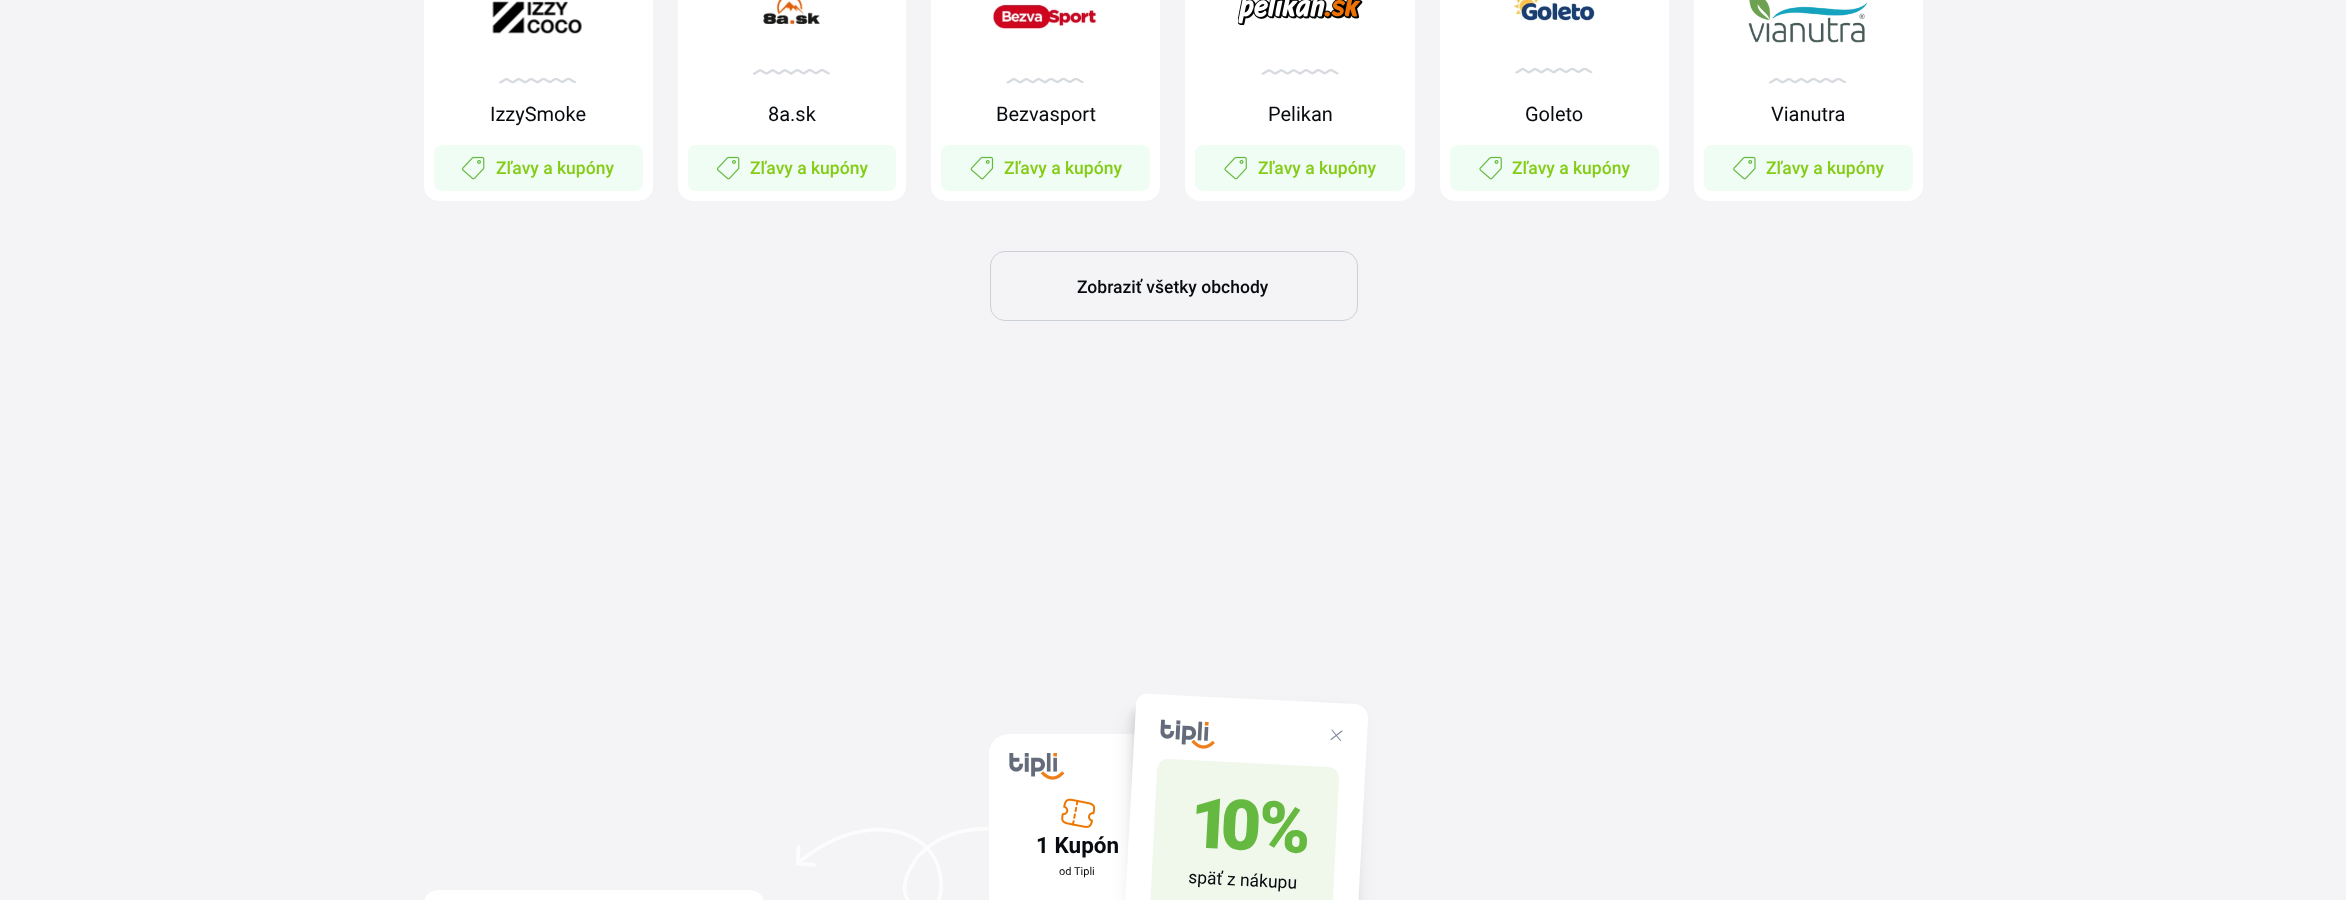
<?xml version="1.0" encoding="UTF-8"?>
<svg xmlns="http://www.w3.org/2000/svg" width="2346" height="900">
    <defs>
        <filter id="blur1" x="-50%" y="-200%" width="200%" height="500%"><feGaussianBlur stdDeviation="4"/></filter>
        <filter id="blur2" x="-50%" y="-200%" width="200%" height="500%"><feGaussianBlur stdDeviation="9.5"/></filter>
    </defs>
    <rect width="100%" height="100%" fill="#F4F4F6"/>
    <rect x="424" y="-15" width="229" height="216" rx="15" fill="#FFFFFF"/>
    <image x="492" y="1" width="90" height="33" href="img_01.png"/>
    <image x="499" y="78" width="78" height="6" href="img_02.png"/>
    <text x="490" y="121" font-family="Roboto" font-size="20" fill="#080B10">IzzySmoke</text>
    <rect x="434" y="145" width="209" height="46" rx="8" fill="#F0FDF4"/>
    <image x="461" y="156" width="24" height="24" href="img_03.png"/>
    <text x="496" y="174" font-family="Roboto" font-size="17.5" font-weight="500" fill="#84CC16">Zľavy a kupóny</text>
    <rect x="678" y="-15" width="228" height="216" rx="15" fill="#FFFFFF"/>
    <image x="763" y="0" width="58" height="25" href="img_04.png"/>
    <image x="753" y="69" width="77" height="6" href="img_05.png"/>
    <text x="768" y="121" font-family="Roboto" font-size="20" fill="#080B10">8a.sk</text>
    <rect x="688" y="145" width="208" height="46" rx="8" fill="#F0FDF4"/>
    <image x="716" y="156" width="24" height="24" href="img_03.png"/>
    <text x="750" y="174" font-family="Roboto" font-size="17.5" font-weight="500" fill="#84CC16">Zľavy a kupóny</text>
    <rect x="931" y="-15" width="229" height="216" rx="15" fill="#FFFFFF"/>
    <image x="992" y="3" width="106" height="27" href="img_06.png"/>
    <image x="1006" y="78" width="78" height="6" href="img_07.png"/>
    <text x="996" y="121" font-family="Roboto" font-size="20" fill="#080B10">Bezvasport</text>
    <rect x="941" y="145" width="209" height="46" rx="8" fill="#F0FDF4"/>
    <image x="970" y="156" width="24" height="24" href="img_08.png"/>
    <text x="1004" y="174" font-family="Roboto" font-size="17.5" font-weight="500" fill="#84CC16">Zľavy a kupóny</text>
    <rect x="1185" y="-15" width="230" height="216" rx="15" fill="#FFFFFF"/>
    <image x="1238" y="0" width="125" height="25" href="img_09.png"/>
    <image x="1261" y="69" width="78" height="6" href="img_10.png"/>
    <text x="1268" y="121" font-family="Roboto" font-size="20" fill="#080B10">Pelikan</text>
    <rect x="1195" y="145" width="210" height="46" rx="8" fill="#F0FDF4"/>
    <image x="1224" y="156" width="23" height="24" href="img_11.png"/>
    <text x="1258" y="174" font-family="Roboto" font-size="17.5" font-weight="500" fill="#84CC16">Zľavy a kupóny</text>
    <rect x="1440" y="-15" width="229" height="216" rx="15" fill="#FFFFFF"/>
    <image x="1513" y="0" width="82" height="22" href="img_12.png"/>
    <image x="1515" y="68" width="78" height="6" href="img_13.png"/>
    <text x="1525" y="121" font-family="Roboto" font-size="20" fill="#080B10">Goleto</text>
    <rect x="1450" y="145" width="209" height="46" rx="8" fill="#F0FDF4"/>
    <image x="1479" y="156" width="23" height="24" href="img_11.png"/>
    <text x="1512" y="174" font-family="Roboto" font-size="17.5" font-weight="500" fill="#84CC16">Zľavy a kupóny</text>
    <rect x="1694" y="-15" width="229" height="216" rx="15" fill="#FFFFFF"/>
    <image x="1748" y="0" width="120" height="43" href="img_14.png"/>
    <image x="1769" y="78" width="78" height="6" href="img_02.png"/>
    <text x="1771" y="121" font-family="Roboto" font-size="20" fill="#080B10">Vianutra</text>
    <rect x="1704" y="145" width="209" height="46" rx="8" fill="#F0FDF4"/>
    <image x="1733" y="156" width="23" height="24" href="img_15.png"/>
    <text x="1766" y="174" font-family="Roboto" font-size="17.5" font-weight="500" fill="#84CC16">Zľavy a kupóny</text>
    <rect x="990.5" y="251.5" width="367" height="69" rx="14.5" fill="none" stroke="#CCD0D7"/>
    <text x="1077" y="293" font-family="Roboto" font-size="17.5" font-weight="500" fill="#080B10">Zobraziť všetky obchody</text>
    <image x="796" y="827" width="193" height="73" href="img_16.png"/>
    <rect x="989" y="734" width="179" height="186" rx="20" fill="#FFFFFF"/>
    <image x="1009" y="753" width="56" height="27" href="img_17.png"/>
    <image x="1061" y="798" width="35" height="30" href="img_18.png"/>
    <text x="1036" y="853" font-family="Roboto" font-size="22.5" font-weight="700" fill="#080B10">1 Kupón</text>
    <text x="1059" y="875" font-family="Roboto" font-size="11" fill="#080B10">od Tipli</text>
    <rect x="1133" y="709" width="222" height="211" rx="8" fill="#000000" fill-opacity="0.1" filter="url(#blur1)"/>
    <rect x="1131" y="715" width="225" height="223" rx="9" fill="#000000" fill-opacity="0.1" filter="url(#blur2)"/>
    <path d="M 1149 694 L 1356 704 C 1363 705 1368 711 1368 718 L 1351 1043 C 1350 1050 1344 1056 1338 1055 L 1130 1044 C 1123 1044 1118 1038 1118 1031 L 1136 705 C 1136 698 1142 693 1149 694 Z" fill="#FFFFFF"/>
    <image x="1160" y="719" width="55" height="30" href="img_19.png"/>
    <path d="M 1331 739.5 L 1342 731 M 1340.5 740.5 L 1332 730" fill="none" stroke="#80899C" stroke-width="1.1" stroke-linecap="round"/>
    <path d="M 1170 759 L 1328 767 C 1335 767 1340 773 1339 780 L 1332 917 C 1332 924 1326 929 1319 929 L 1162 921 C 1155 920 1150 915 1150 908 L 1157 770 C 1158 763 1163 758 1170 759 Z" fill="#F0F8EC"/>
    <text x="1189" y="847" transform="rotate(3 1189 847)" font-family="Roboto" font-size="70" font-weight="900" letter-spacing="-10" fill="#66B940">10 %</text>
    <text x="1188" y="883" transform="rotate(3 1188 883)" font-family="Roboto" font-size="17.5" fill="#080B10">späť z nákupu</text>
    <rect x="424" y="890" width="340" height="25" rx="15" fill="#FFFFFF"/>
</svg>
